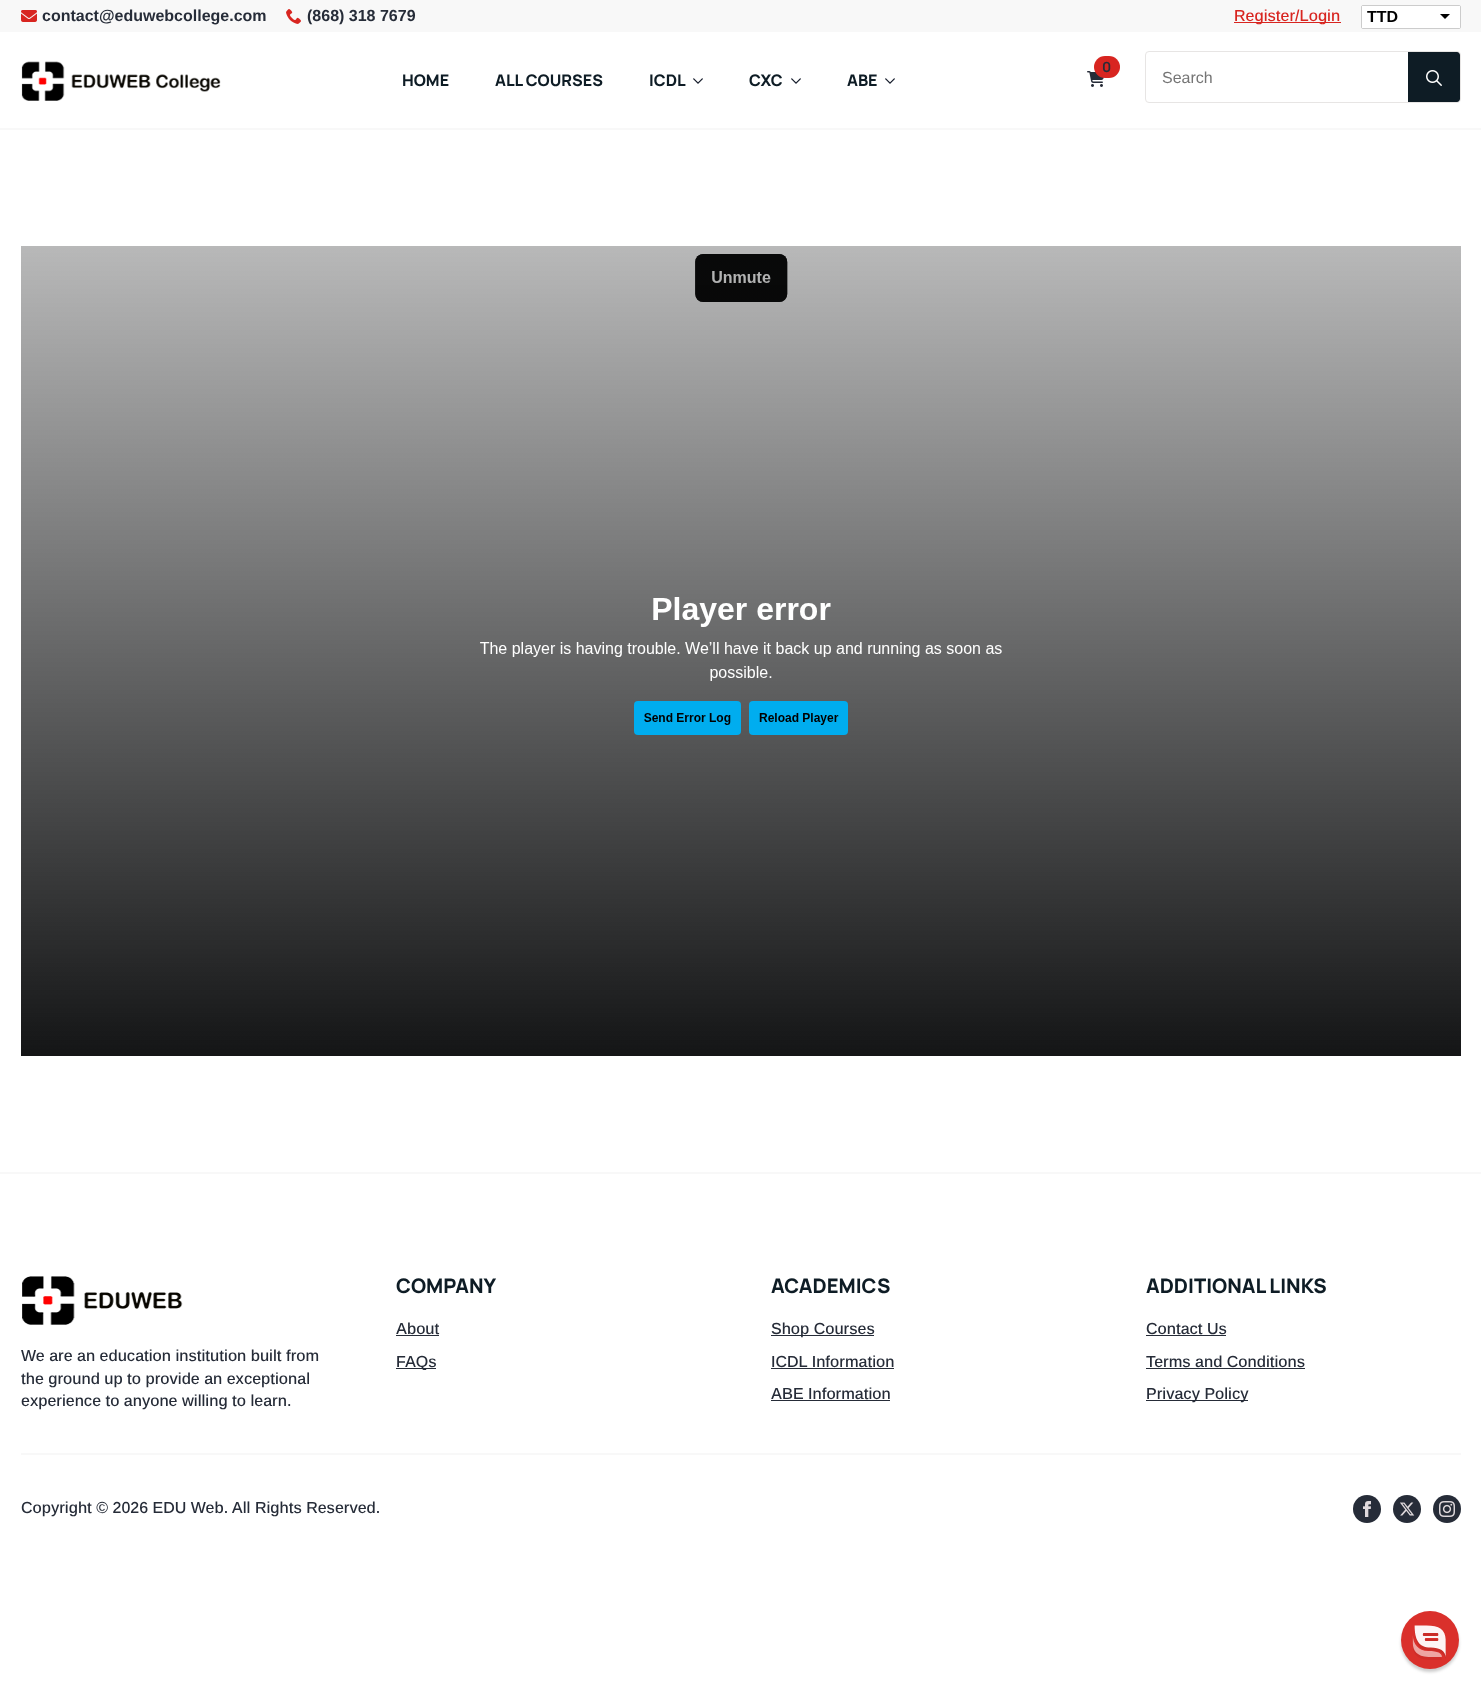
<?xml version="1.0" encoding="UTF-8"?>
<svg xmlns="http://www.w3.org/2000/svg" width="1481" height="1691">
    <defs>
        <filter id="blur1" x="-50%" y="-200%" width="200%" height="500%"><feGaussianBlur stdDeviation="1.5"/></filter>
    </defs>
    <rect width="100%" height="100%" fill="#FFFFFF"/>
    <rect x="0" y="0" width="1481" height="32" fill="#F8F8F8"/>
    <image x="21" y="10" width="16" height="12" href="img_01.png"/>
    <text x="42" y="21" font-family="Arimo" font-size="16" font-weight="700" fill="#262C38">contact@eduwebcollege.com</text>
    <image x="286" y="9" width="15" height="15" href="img_02.png"/>
    <text x="307" y="21" font-family="Arimo" font-size="16" font-weight="700" fill="#262C38">(868) 318 7679</text>
    <rect x="1234" y="22" width="107" height="1" fill="#D82520"/>
    <text x="1234" y="21" font-family="Arimo" font-size="16" font-weight="500" fill="#D82520">Register/Login</text>
    <rect x="1361.5" y="5.5" width="99" height="23" rx="1.5" fill="none" stroke="#CCCCCC"/>
    <rect x="1362" y="6" width="98" height="22" fill="#FFFFFF"/>
    <text x="1367" y="22" font-family="Arimo" font-size="16" font-weight="700" fill="#000000">TTD</text>
    <path d="M 1440 14 H 1450 L 1445 19 Z" fill="#000000"/>
    <image x="21" y="61" width="200" height="40" href="img_03.png"/>
    <text x="402" y="86" font-family="Manrope" font-size="16" font-weight="800" fill="#0E1C25">HOME</text>
    <text x="495" y="86" font-family="Manrope" font-size="16" font-weight="800" fill="#0E1C25">ALL COURSES</text>
    <text x="649" y="86" font-family="Manrope" font-size="16" font-weight="800" fill="#0E1C25">ICDL</text>
    <image x="693" y="78" width="10" height="6" href="img_04.png"/>
    <text x="749" y="86" font-family="Manrope" font-size="16" font-weight="800" fill="#0E1C25">CXC</text>
    <image x="791" y="78" width="10" height="6" href="img_04.png"/>
    <text x="847" y="86" font-family="Manrope" font-size="16" font-weight="800" fill="#0E1C25">ABE</text>
    <image x="885" y="78" width="10" height="6" href="img_04.png"/>
    <image x="1087" y="71" width="17" height="16" href="img_05.png"/>
    <rect x="1094" y="56" width="26" height="22" rx="11" fill="#D82520"/>
    <text x="1102" y="72" font-family="Manrope" font-size="14" font-weight="700" fill="#262C38">0</text>
    <rect x="1145.5" y="51.5" width="315" height="51" rx="3.5" fill="none" stroke="#E7E5E4"/>
    <text x="1162" y="83" font-family="Arimo" font-size="16" fill="#757575">Search</text>
    <path d="M 1408 52 H 1457 C 1458.5 52 1460 53.5 1460 55 V 99 C 1460 100.5 1458.5 102 1457 102 H 1408 Z" fill="#0E1C25"/>
    <image x="1426" y="70" width="16" height="16" href="img_06.png"/>
    <rect x="0" y="128" width="1481" height="2" fill="#F8F8F8"/>
    <image x="21" y="246" width="1440" height="810" href="img_07.png"/>
    <rect x="0" y="1172" width="1481" height="2" fill="#F8F8F8"/>
    <image x="22" y="1276" width="161" height="49" href="img_08.png"/>
    <text font-family="Arimo" font-size="16" font-weight="500" fill="#262C38">
        <tspan x="21" y="1361">We are an education institution built from</tspan>
        <tspan x="21" y="1384">the ground up to provide an exceptional</tspan>
        <tspan x="21" y="1406">experience to anyone willing to learn.</tspan>
    </text>
    <text x="396" y="1293" font-family="Manrope" font-size="20" font-weight="800" fill="#0E1C25">COMPANY</text>
    <text x="396" y="1334" font-family="Arimo" font-size="16" font-weight="500" fill="#262C38">About</text>
    <rect x="396" y="1335" width="43" height="1" fill="#262C38"/>
    <rect x="396" y="1368" width="40" height="1" fill="#262C38"/>
    <text x="396" y="1367" font-family="Arimo" font-size="16" font-weight="500" fill="#262C38">FAQs</text>
    <text x="771" y="1293" font-family="Manrope" font-size="20" font-weight="800" fill="#0E1C25">ACADEMICS</text>
    <rect x="771" y="1335" width="103" height="1" fill="#262C38"/>
    <text x="771" y="1334" font-family="Arimo" font-size="16" font-weight="500" fill="#262C38">Shop Courses</text>
    <text x="771" y="1367" font-family="Arimo" font-size="16" font-weight="500" fill="#262C38">ICDL Information</text>
    <rect x="771" y="1368" width="123" height="1" fill="#262C38"/>
    <text x="771" y="1399" font-family="Arimo" font-size="16" font-weight="500" fill="#262C38">ABE Information</text>
    <rect x="771" y="1400" width="119" height="1" fill="#262C38"/>
    <text x="1146" y="1293" font-family="Manrope" font-size="20" font-weight="800" fill="#0E1C25">ADDITIONAL LINKS</text>
    <text x="1146" y="1334" font-family="Arimo" font-size="16" font-weight="500" fill="#262C38">Contact Us</text>
    <rect x="1146" y="1335" width="80" height="1" fill="#262C38"/>
    <text x="1146" y="1367" font-family="Arimo" font-size="16" font-weight="500" fill="#262C38">Terms and Conditions</text>
    <rect x="1146" y="1368" width="159" height="1" fill="#262C38"/>
    <rect x="1146" y="1400" width="102" height="1" fill="#262C38"/>
    <text x="1146" y="1399" font-family="Arimo" font-size="16" font-weight="500" fill="#262C38">Privacy Policy</text>
    <rect x="21" y="1453" width="1440" height="2" fill="#F8F8F8"/>
    <text x="21" y="1513" font-family="Arimo" font-size="16" font-weight="500" fill="#262C38">Copyright © 2026 EDU Web. All Rights Reserved.</text>
    <circle cx="1367" cy="1509" r="14" fill="#262C38"/>
    <image x="1363" y="1501" width="8" height="16" href="img_09.png"/>
    <circle cx="1407" cy="1509" r="14" fill="#262C38"/>
    <image x="1400" y="1502" width="15" height="14" href="img_10.png"/>
    <circle cx="1447" cy="1509" r="14" fill="#262C38"/>
    <image x="1439" y="1501" width="16" height="16" href="img_11.png"/>
    <rect x="1401" y="1614" width="58" height="58" rx="29" fill="#0D0D0D" fill-opacity="0.2" filter="url(#blur1)"/>
    <circle cx="1430" cy="1640" r="29" fill="#DA302B"/>
    <image x="1412" y="1625" width="34" height="35" href="img_12.png"/>
</svg>
